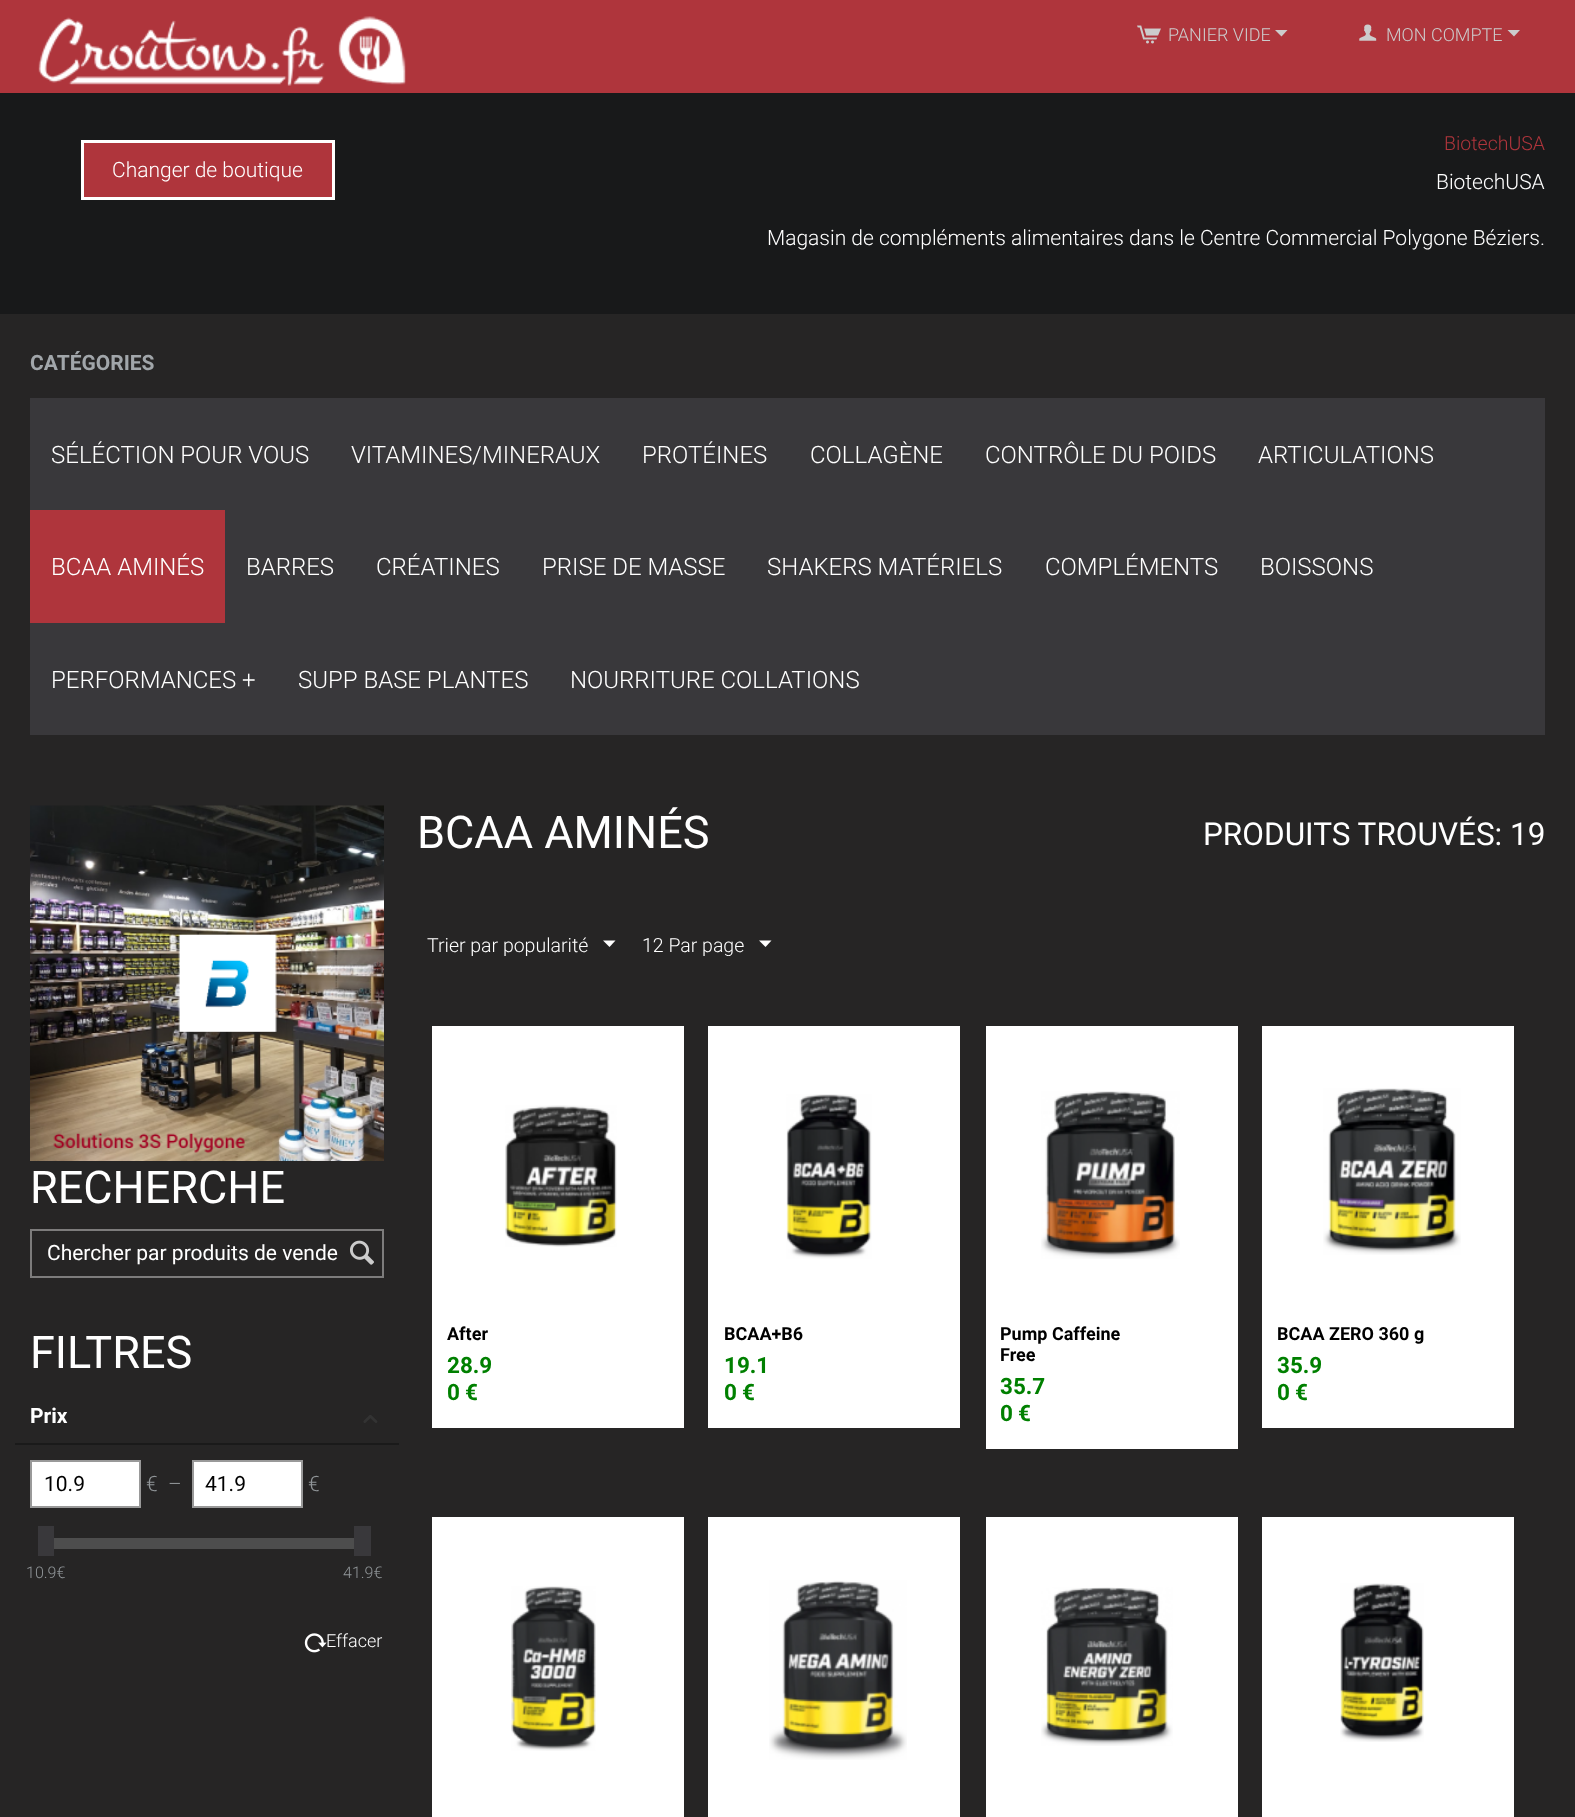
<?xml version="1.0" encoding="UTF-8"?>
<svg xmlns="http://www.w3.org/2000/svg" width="1575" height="1817">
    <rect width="100%" height="100%" fill="#18191A"/>
    <rect x="0" y="0" width="1575" height="93" fill="#AF353C"/>
    <image x="38" y="16" width="368" height="70" href="img_01.png"/>
    <image x="1137" y="25" width="24" height="19" href="img_02.png"/>
    <text x="1168" y="41" font-family="Roboto" font-size="18" font-weight="300" fill="#CCCCCC">PANIER VIDE</text>
    <path d="M 1281.5 36.5 L 1275 30 H 1287.5 Z" fill="#CCCCCC"/>
    <image x="1359" y="24" width="18" height="17" href="img_03.png"/>
    <text x="1386" y="41" font-family="Roboto" font-size="18" font-weight="300" fill="#CCCCCC">MON COMPTE</text>
    <path d="M 1514 36.5 L 1507.5 30 H 1520 Z" fill="#CCCCCC"/>
    <rect x="82.5" y="141.5" width="251" height="57" fill="#AF353C" stroke="#FFFFFF" stroke-width="3"/>
    <text x="112" y="177" font-family="Roboto" font-size="21" font-weight="300" fill="#FFFFFF">Changer de boutique</text>
    <text x="1444" y="150" font-family="Roboto" font-size="19.5" font-weight="300" fill="#AF353C">BiotechUSA</text>
    <text x="1436" y="189" font-family="Roboto" font-size="21" font-weight="300" fill="#FFFFFF">BiotechUSA</text>
    <text x="767" y="245" font-family="Roboto" font-size="21" font-weight="300" fill="#FFFFFF">Magasin de compléments alimentaires dans le Centre Commercial Polygone Béziers.</text>
    <rect x="0" y="314" width="1575" height="1503" fill="#262525"/>
    <text x="30" y="370" font-family="Roboto" font-size="21" font-weight="700" fill="#A1A6AA">CATÉGORIES</text>
    <rect x="30" y="398" width="1515" height="337" fill="#39383B"/>
    <text x="51" y="463" font-family="Roboto" font-size="24" font-weight="300" fill="#FFFFFF">SÉLÉCTION POUR VOUS</text>
    <text x="351" y="463" font-family="Roboto" font-size="24" font-weight="300" fill="#FFFFFF">VITAMINES/MINERAUX</text>
    <text x="642" y="463" font-family="Roboto" font-size="24" font-weight="300" fill="#FFFFFF">PROTÉINES</text>
    <text x="810" y="463" font-family="Roboto" font-size="24" font-weight="300" fill="#FFFFFF">COLLAGÈNE</text>
    <text x="985" y="463" font-family="Roboto" font-size="24" font-weight="300" fill="#FFFFFF">CONTRÔLE DU POIDS</text>
    <text x="1258" y="463" font-family="Roboto" font-size="24" font-weight="300" fill="#FFFFFF">ARTICULATIONS</text>
    <rect x="30" y="510" width="195" height="113" fill="#AF353C"/>
    <text x="51" y="575" font-family="Roboto" font-size="24" font-weight="300" fill="#FFFFFF">BCAA AMINÉS</text>
    <text x="246" y="575" font-family="Roboto" font-size="24" font-weight="300" fill="#FFFFFF">BARRES</text>
    <text x="376" y="575" font-family="Roboto" font-size="24" font-weight="300" fill="#FFFFFF">CRÉATINES</text>
    <text x="542" y="575" font-family="Roboto" font-size="24" font-weight="300" fill="#FFFFFF">PRISE DE MASSE</text>
    <text x="767" y="575" font-family="Roboto" font-size="24" font-weight="300" fill="#FFFFFF">SHAKERS MATÉRIELS</text>
    <text x="1045" y="575" font-family="Roboto" font-size="24" font-weight="300" fill="#FFFFFF">COMPLÉMENTS</text>
    <text x="1260" y="575" font-family="Roboto" font-size="24" font-weight="300" fill="#FFFFFF">BOISSONS</text>
    <text x="51" y="688" font-family="Roboto" font-size="24" font-weight="300" fill="#FFFFFF">PERFORMANCES +</text>
    <text x="298" y="688" font-family="Roboto" font-size="24" font-weight="300" fill="#FFFFFF">SUPP BASE PLANTES</text>
    <text x="570" y="688" font-family="Roboto" font-size="24" font-weight="300" fill="#FFFFFF">NOURRITURE COLLATIONS</text>
    <image x="30" y="805" width="354" height="356" href="img_04.png"/>
    <text x="30" y="1203" font-family="Roboto" font-size="45" fill="#FFFFFF">RECHERCHE</text>
    <rect x="31" y="1230" width="352" height="47" fill="none" stroke="#7D7C7C" stroke-width="2"/>
    <text x="47" y="1260" font-family="Roboto" font-size="21" fill="#FFFFFF">Chercher par produits de vende</text>
    <image x="350" y="1240" width="24" height="25" href="img_05.png"/>
    <text x="30" y="1368" font-family="Roboto" font-size="45" fill="#FFFFFF">FILTRES</text>
    <rect x="15" y="1443" width="384" height="2" fill="#1A1A1A"/>
    <text x="30" y="1423" font-family="Roboto" font-size="21" font-weight="700" fill="#FFFFFF">Prix</text>
    <image x="363" y="1415" width="15" height="8" href="img_06.png"/>
    <rect x="31" y="1461" width="109" height="46" fill="#FFFFFF" stroke="#999999" stroke-width="2"/>
    <text x="44" y="1491" font-family="Roboto" font-size="21" fill="#000000">10.9</text>
    <text x="146" y="1491" font-family="Roboto" font-size="21" font-weight="300" fill="#909598">€</text>
    <text x="168" y="1491" font-family="Roboto" font-size="21" font-weight="300" fill="#909598">–</text>
    <rect x="193" y="1461" width="109" height="46" fill="#FFFFFF" stroke="#999999" stroke-width="2"/>
    <text x="205" y="1491" font-family="Roboto" font-size="21" fill="#000000">41.9</text>
    <text x="308" y="1491" font-family="Roboto" font-size="21" font-weight="300" fill="#909598">€</text>
    <rect x="48" y="1548" width="306" height="1" fill="#4D4D4D"/>
    <rect x="38" y="1526" width="16" height="30" fill="#39383B"/>
    <rect x="54" y="1538" width="300" height="10" fill="#4D4D4D"/>
    <rect x="354" y="1526" width="17" height="30" fill="#39383B"/>
    <text x="26" y="1578" font-family="Roboto" font-size="16" font-weight="300" fill="#909598">10.9€</text>
    <text x="343" y="1578" font-family="Roboto" font-size="16" font-weight="300" fill="#909598">41.9€</text>
    <image x="304" y="1633" width="23" height="20" href="img_07.png"/>
    <text x="326" y="1647" font-family="Roboto" font-size="18" font-weight="300" fill="#FFFFFF">Effacer</text>
    <text x="417" y="848" font-family="Roboto" font-size="45" fill="#FFFFFF">BCAA AMINÉS</text>
    <text x="1203" y="845" font-family="Roboto" font-size="31.5" fill="#FFFFFF">PRODUITS TROUVÉS: 19</text>
    <text x="427" y="952" font-family="Roboto" font-size="19.5" font-weight="300" fill="#FFFFFF">Trier par popularité</text>
    <path d="M 609.5 947 L 603 940.5 H 615.5 Z" fill="#FFFFFF"/>
    <text x="642" y="952" font-family="Roboto" font-size="19.5" font-weight="300" fill="#FFFFFF">12 Par page</text>
    <path d="M 765.5 947 L 759 940.5 H 771.5 Z" fill="#FFFFFF"/>
    <rect x="432" y="1026" width="252" height="402" fill="#FFFFFF"/>
    <image x="505" y="1105" width="112" height="142" href="img_08.png"/>
    <text x="447" y="1340" font-family="Roboto" font-size="18" font-weight="700" fill="#000000">After</text>
    <text font-family="Roboto" font-size="22.5" font-weight="700" fill="#008000">
        <tspan x="447" y="1373">28.9</tspan>
        <tspan x="447" y="1400">0</tspan>
    </text>
    <text x="465" y="1400" font-family="Roboto" font-size="22.5" font-weight="700" fill="#008000">€</text>
    <rect x="708" y="1026" width="252" height="402" fill="#FFFFFF"/>
    <image x="786" y="1094" width="86" height="165" href="img_09.png"/>
    <text x="724" y="1340" font-family="Roboto" font-size="18" font-weight="700" fill="#000000">BCAA+B6</text>
    <text font-family="Roboto" font-size="22.5" font-weight="700" fill="#008000">
        <tspan x="724" y="1373">19.1</tspan>
        <tspan x="724" y="1400">0</tspan>
    </text>
    <text x="742" y="1400" font-family="Roboto" font-size="22.5" font-weight="700" fill="#008000">€</text>
    <rect x="986" y="1026" width="252" height="423" fill="#FFFFFF"/>
    <image x="1041" y="1091" width="139" height="168" href="img_10.png"/>
    <text font-family="Roboto" font-size="18" font-weight="700" fill="#000000">
        <tspan x="1000" y="1340">Pump Caffeine</tspan>
        <tspan x="1000" y="1361">Free</tspan>
    </text>
    <text font-family="Roboto" font-size="22.5" font-weight="700" fill="#008000">
        <tspan x="1000" y="1394">35.7</tspan>
        <tspan x="1000" y="1421">0</tspan>
    </text>
    <text x="1018" y="1421" font-family="Roboto" font-size="22.5" font-weight="700" fill="#008000">€</text>
    <rect x="1262" y="1026" width="252" height="402" fill="#FFFFFF"/>
    <image x="1323" y="1088" width="138" height="167" href="img_11.png"/>
    <text x="1277" y="1340" font-family="Roboto" font-size="18" font-weight="700" fill="#000000">BCAA ZERO 360 g</text>
    <text font-family="Roboto" font-size="22.5" font-weight="700" fill="#008000">
        <tspan x="1277" y="1373">35.9</tspan>
        <tspan x="1277" y="1400">0</tspan>
    </text>
    <text x="1295" y="1400" font-family="Roboto" font-size="22.5" font-weight="700" fill="#008000">€</text>
    <rect x="432" y="1517" width="252" height="300" fill="#FFFFFF"/>
    <image x="511" y="1586" width="85" height="165" href="img_12.png"/>
    <rect x="708" y="1517" width="252" height="300" fill="#FFFFFF"/>
    <image x="769" y="1580" width="138" height="180" href="img_13.png"/>
    <rect x="986" y="1517" width="252" height="300" fill="#FFFFFF"/>
    <image x="1041" y="1587" width="132" height="159" href="img_14.png"/>
    <rect x="1262" y="1517" width="252" height="300" fill="#FFFFFF"/>
    <image x="1340" y="1583" width="84" height="159" href="img_15.png"/>
</svg>
